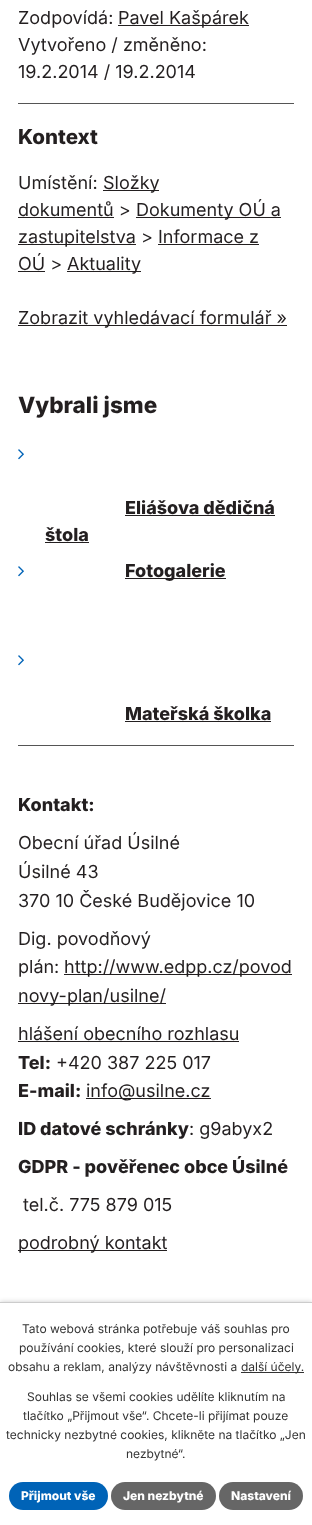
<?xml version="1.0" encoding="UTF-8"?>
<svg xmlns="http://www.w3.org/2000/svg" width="312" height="1525">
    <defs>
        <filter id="blur1" x="-50%" y="-200%" width="200%" height="500%"><feGaussianBlur stdDeviation="2.5"/></filter>
    </defs>
    <rect width="100%" height="100%" fill="#FFFFFF"/>
    <text x="18" y="24" font-family="Inter" font-size="18" fill="#231F20">Zodpovídá:</text>
    <rect x="118" y="25" width="131" height="1" fill="#231F20"/>
    <text x="118" y="24" font-family="Inter" font-size="18" fill="#231F20">Pavel Kašpárek</text>
    <text font-family="Inter" font-size="18" fill="#231F20">
        <tspan x="18" y="51">Vytvořeno / změněno:</tspan>
        <tspan x="18" y="78">19.2.2014 / 19.2.2014</tspan>
    </text>
    <rect x="18" y="103" width="276" height="1" fill="#555555"/>
    <text x="18" y="144" font-family="Inter" font-size="20.5" font-weight="800" fill="#231F20">Kontext</text>
    <text x="18" y="189" font-family="Inter" font-size="18" fill="#231F20">Umístění:</text>
    <rect x="103" y="190" width="56" height="1" fill="#231F20"/>
    <text x="103" y="189" font-family="Inter" font-size="18" fill="#231F20">Složky</text>
    <text x="18" y="216" font-family="Inter" font-size="18" fill="#231F20">dokumentů &gt;</text>
    <rect x="18" y="217" width="96" height="1" fill="#231F20"/>
    <rect x="136" y="217" width="145" height="1" fill="#231F20"/>
    <text x="136" y="216" font-family="Inter" font-size="18" fill="#231F20">Dokumenty OÚ a</text>
    <rect x="18" y="244" width="118" height="1" fill="#231F20"/>
    <text font-family="Inter" font-size="18" fill="#231F20">
        <tspan x="18" y="243">zastupitelstva &gt; Informace z</tspan>
        <tspan x="18" y="270">OÚ &gt;</tspan>
    </text>
    <rect x="158" y="244" width="101" height="1" fill="#231F20"/>
    <rect x="18" y="271" width="27" height="1" fill="#231F20"/>
    <rect x="67" y="271" width="74" height="1" fill="#231F20"/>
    <text x="67" y="270" font-family="Inter" font-size="18" fill="#231F20">Aktuality</text>
    <rect x="18" y="325" width="253" height="1" fill="#231F20"/>
    <text x="18" y="324" font-family="Inter" font-size="18" fill="#231F20">Zobrazit vyhledávací formulář »</text>
    <rect x="271" y="325" width="16" height="1" fill="#231F20"/>
    <text x="18" y="413" font-family="Inter" font-size="22.5" font-weight="800" fill="#231F20">Vybrali jsme</text>
    <image x="18" y="449" width="6" height="11" href="img_01.png"/>
    <text x="125" y="514" font-family="Inter" font-size="18" font-weight="800" fill="#231F20">Eliášova dědičná</text>
    <rect x="125" y="515" width="150" height="1" fill="#231F20"/>
    <text x="45" y="541" font-family="Inter" font-size="18" font-weight="800" fill="#231F20">štola</text>
    <rect x="45" y="542" width="44" height="1" fill="#231F20"/>
    <image x="18" y="566" width="6" height="11" href="img_01.png"/>
    <rect x="125" y="578" width="101" height="1" fill="#231F20"/>
    <text x="125" y="577" font-family="Inter" font-size="18" font-weight="800" fill="#231F20">Fotogalerie</text>
    <image x="18" y="655" width="6" height="11" href="img_01.png"/>
    <text x="125" y="720" font-family="Inter" font-size="18" font-weight="800" fill="#231F20">Mateřská školka</text>
    <rect x="125" y="721" width="146" height="1" fill="#231F20"/>
    <rect x="18" y="745" width="276" height="1" fill="#555555"/>
    <text x="18" y="811" font-family="Inter" font-size="18" font-weight="800" fill="#231F20">Kontakt:</text>
    <text font-family="Inter" font-size="18" fill="#231F20">
        <tspan x="18" y="849">Obecní úřad Úsilné</tspan>
        <tspan x="18" y="878">Úsilné 43</tspan>
        <tspan x="18" y="907">370 10 České Budějovice 10</tspan>
    </text>
    <text font-family="Inter" font-size="18" fill="#231F20">
        <tspan x="18" y="945">Dig. povodňový</tspan>
        <tspan x="18" y="973">plán:</tspan>
    </text>
    <rect x="64" y="974" width="228" height="1" fill="#231F20"/>
    <text x="64" y="973" font-family="Inter" font-size="18" fill="#231F20">http://www.edpp.cz/povod</text>
    <rect x="18" y="1003" width="148" height="1" fill="#231F20"/>
    <text x="18" y="1002" font-family="Inter" font-size="18" fill="#231F20">novy-plan/usilne/</text>
    <text x="18" y="1040" font-family="Inter" font-size="18" fill="#231F20">hlášení obecního rozhlasu</text>
    <rect x="18" y="1041" width="221" height="1" fill="#231F20"/>
    <text x="18" y="1069" font-family="Inter" font-size="18" font-weight="800" fill="#231F20">Tel:</text>
    <text x="56" y="1069" font-family="Inter" font-size="18" fill="#231F20">+420 387 225 017</text>
    <text x="18" y="1097" font-family="Inter" font-size="18" font-weight="800" fill="#231F20">E-mail:</text>
    <rect x="86" y="1098" width="125" height="1" fill="#231F20"/>
    <text x="86" y="1097" font-family="Inter" font-size="18" fill="#231F20">info@usilne.cz</text>
    <text x="18" y="1135" font-family="Inter" font-size="18" font-weight="800" fill="#231F20">ID datové schránky</text>
    <text x="189" y="1135" font-family="Inter" font-size="18" fill="#231F20">: g9abyx2</text>
    <text x="18" y="1173" font-family="Inter" font-size="18" font-weight="800" fill="#231F20">GDPR - pověřenec obce Úsilné</text>
    <text x="23" y="1211" font-family="Inter" font-size="18" fill="#231F20">tel.č. 775 879 015</text>
    <rect x="18" y="1250" width="149" height="1" fill="#231F20"/>
    <text x="18" y="1249" font-family="Inter" font-size="18" fill="#231F20">podrobný kontakt</text>
    <rect x="0" y="1302" width="312" height="223" fill="#000000" fill-opacity="0.2" filter="url(#blur1)"/>
    <rect x="0" y="1303" width="312" height="222" fill="#FFFFFF"/>
    <rect x="0" y="1302" width="312" height="1" fill="#CCCCCC"/>
    <text x="22" y="1333" font-family="Inter" font-size="12" fill="#333333">Tato webová stránka potřebuje váš souhlas pro</text>
    <text x="19" y="1352" font-family="Inter" font-size="12" fill="#333333">používání cookies, které slouží pro personalizaci</text>
    <text x="8" y="1371" font-family="Inter" font-size="12" fill="#333333">obsahu a reklam, analýzy návštěvnosti a</text>
    <rect x="241" y="1372" width="63" height="1" fill="#333333"/>
    <text x="241" y="1371" font-family="Inter" font-size="12" fill="#333333">další účely.</text>
    <text x="27" y="1401" font-family="Inter" font-size="12" fill="#333333">Souhlas se všemi cookies udělíte kliknutím na</text>
    <text x="23" y="1420" font-family="Inter" font-size="12" fill="#333333">tlačítko „Přijmout vše“. Chcete-li přijímat pouze</text>
    <text x="6" y="1439" font-family="Inter" font-size="12" fill="#333333">technicky nezbytné cookies, klikněte na tlačítko „Jen</text>
    <text x="126" y="1458" font-family="Inter" font-size="12" fill="#333333">nezbytné“.</text>
    <rect x="9" y="1482" width="99" height="28" rx="14" fill="#0063B7"/>
    <text x="21" y="1500" font-family="Inter" font-size="12" font-weight="800" fill="#FFFFFF">Přijmout vše</text>
    <rect x="111" y="1482" width="105" height="28" rx="14" fill="#666666"/>
    <text x="123" y="1500" font-family="Inter" font-size="12" font-weight="800" fill="#FFFFFF">Jen nezbytné</text>
    <rect x="219" y="1482" width="84" height="28" rx="14" fill="#666666"/>
    <text x="231" y="1500" font-family="Inter" font-size="12" font-weight="800" fill="#FFFFFF">Nastavení</text>
</svg>
